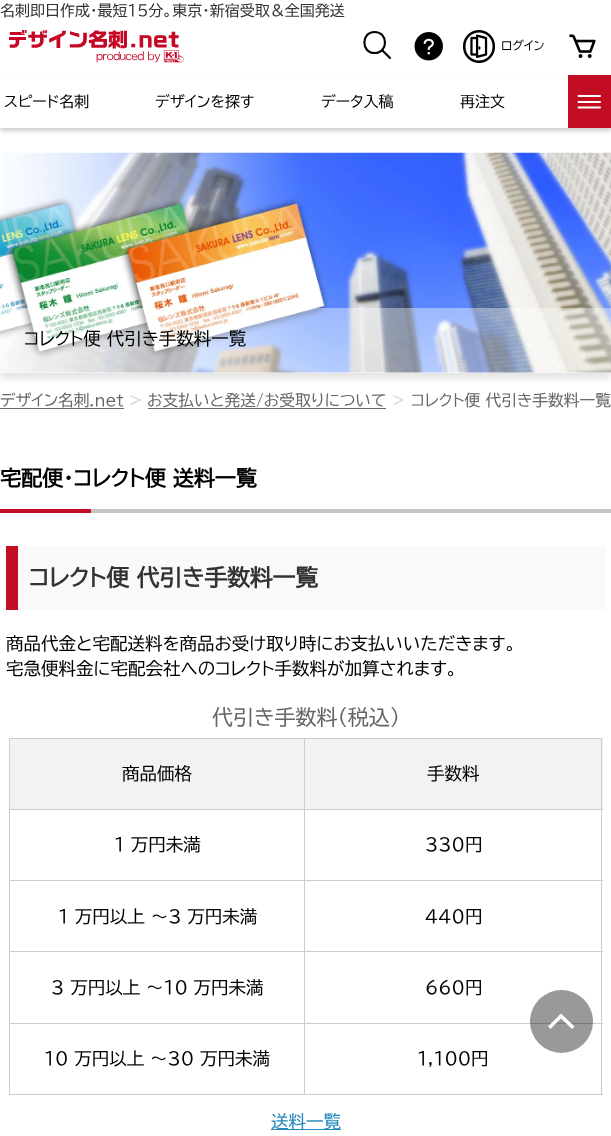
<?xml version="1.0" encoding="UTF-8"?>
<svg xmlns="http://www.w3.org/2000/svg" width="611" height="1136">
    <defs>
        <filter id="blur1" x="-50%" y="-200%" width="200%" height="500%"><feGaussianBlur stdDeviation="2"/></filter>
        <clipPath id="clip1"><path d="M 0 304 H 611 V 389 H 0 Z M 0 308 H 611 V 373 H 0 Z" clip-rule="evenodd"/></clipPath>
        <filter id="blur2" x="-50%" y="-200%" width="200%" height="500%"><feGaussianBlur stdDeviation="3"/></filter>
    </defs>
    <rect width="100%" height="100%" fill="#FFFFFF"/>
    <text x="0" y="16" font-family="BIZ UDPGothic" font-size="15" fill="#333333">名刺即日作成・最短15分。東京・新宿受取＆全国発送</text>
    <image x="9" y="30" width="175" height="33" href="img_01.png"/>
    <path d="M 374.5 32 C 361 32 361 53 374.5 53 C 388.5 53 388.5 32 374.5 32 Z" fill="none" stroke="#000000" stroke-width="2.1"/>
    <path d="M 382.5 50.5 L 390 58" fill="none" stroke="#000000" stroke-width="2.1" stroke-linecap="round"/>
    <image x="414" y="32" width="29" height="29" href="img_02.png"/>
    <image x="463" y="30" width="32" height="33" href="img_03.png"/>
    <text x="501" y="50" font-family="BIZ UDPGothic" font-size="12" fill="#000000">ログイン</text>
    <image x="569" y="34" width="27" height="24" href="img_04.png"/>
    <rect x="0" y="79" width="611" height="52" fill="#000000" fill-opacity="0.2" filter="url(#blur1)"/>
    <rect x="0" y="76" width="568" height="52" fill="#FFFFFF"/>
    <text x="4" y="107" font-family="BIZ UDPGothic" font-size="15" fill="#000000">スピード名刺</text>
    <text x="155" y="107" font-family="BIZ UDPGothic" font-size="15" fill="#000000">デザインを探す</text>
    <text x="321" y="107" font-family="BIZ UDPGothic" font-size="15" fill="#000000">データ入稿</text>
    <text x="460" y="107" font-family="BIZ UDPGothic" font-size="15" fill="#000000">再注文</text>
    <rect x="568" y="75" width="43" height="53" fill="#C30D23"/>
    <path d="M 578.5 96 H 600 M 578.5 102 H 600 M 578.5 107.5 H 600" fill="none" stroke="#FFFFFF" stroke-width="2" stroke-linecap="round"/>
    <image x="0" y="152" width="611" height="221" href="img_05.png"/>
    <g clip-path="url(#clip1)">
        <rect x="0" y="314" width="611" height="65" fill="#000000" fill-opacity="0.1" filter="url(#blur2)"/>
    </g>
    <rect x="0" y="308" width="611" height="65" fill="#FFFFFF" fill-opacity="0.4"/>
    <text x="24" y="345" font-family="BIZ UDPGothic" font-size="17.5" fill="#000000">コレクト便 代引き手数料一覧</text>
    <text x="0" y="406" font-family="BIZ UDPGothic" font-size="15.75" fill="#666666">デザイン名刺.net</text>
    <rect x="0" y="408" width="124" height="1" fill="#666666"/>
    <text x="129" y="406" font-family="BIZ UDPGothic" font-size="15.75" fill="#CCCCCC">&gt;</text>
    <text x="147" y="406" font-family="BIZ UDPGothic" font-size="15.75" fill="#666666">お支払いと発送/お受取りについて</text>
    <rect x="148" y="408" width="238" height="1" fill="#666666"/>
    <text x="392" y="406" font-family="BIZ UDPGothic" font-size="15.75" fill="#CCCCCC">&gt;</text>
    <text x="411" y="406" font-family="BIZ UDPGothic" font-size="15.75" fill="#666666">コレクト便 代引き手数料一覧</text>
    <rect x="91" y="509" width="520" height="4" fill="#C4C4C4"/>
    <text x="0" y="486" font-family="BIZ UDPGothic" font-size="21" font-weight="700" fill="#000000">宅配便・コレクト便 送料一覧</text>
    <rect x="0" y="509" width="91" height="4" fill="#C30D23"/>
    <rect x="18" y="546" width="587" height="64" fill="#F9F9F9"/>
    <rect x="6" y="546" width="12" height="64" fill="#C30D23"/>
    <text x="29" y="586" font-family="BIZ UDPGothic" font-size="22.75" font-weight="700" fill="#333333">コレクト便 代引き手数料一覧</text>
    <text font-family="BIZ UDPGothic" font-size="17.5" fill="#000000">
        <tspan x="6" y="650">商品代金と宅配送料を商品お受け取り時にお支払いいただきます。</tspan>
        <tspan x="6" y="675">宅急便料金に宅配会社へのコレクト手数料が加算されます。</tspan>
    </text>
    <text x="212" y="725" font-family="BIZ UDPGothic" font-size="21" fill="#666666">代引き手数料(税込)</text>
    <rect x="9.5" y="738.5" width="295" height="71" fill="#F2F2F2" stroke="#CCCCCC"/>
    <text x="122" y="780" font-family="BIZ UDPGothic" font-size="17.5" fill="#000000">商品価格</text>
    <rect x="305" y="739" width="298" height="70" fill="#F2F2F2"/>
    <rect x="305" y="738" width="298" height="1" fill="#CCCCCC"/>
    <rect x="601" y="738" width="1" height="357" fill="#CCCCCC"/>
    <rect x="305" y="809" width="298" height="1" fill="#CCCCCC"/>
    <text x="427" y="780" font-family="BIZ UDPGothic" font-size="17.5" fill="#000000">手数料</text>
    <rect x="304" y="810" width="1" height="285" fill="#CCCCCC"/>
    <rect x="9" y="880" width="594" height="1" fill="#CCCCCC"/>
    <rect x="9" y="810" width="1" height="71" fill="#CCCCCC"/>
    <text x="114" y="851" font-family="BIZ UDPGothic" font-size="17.5" fill="#000000">1 万円未満</text>
    <text x="425" y="851" font-family="BIZ UDPGothic" font-size="17.5" fill="#000000">330円</text>
    <rect x="9" y="951" width="594" height="1" fill="#CCCCCC"/>
    <rect x="9" y="881" width="1" height="72" fill="#CCCCCC"/>
    <text x="58" y="923" font-family="BIZ UDPGothic" font-size="17.5" fill="#000000">1 万円以上 ～3 万円未満</text>
    <text x="425" y="923" font-family="BIZ UDPGothic" font-size="17.5" fill="#000000">440円</text>
    <rect x="9" y="1023" width="594" height="1" fill="#CCCCCC"/>
    <rect x="9" y="953" width="1" height="71" fill="#CCCCCC"/>
    <text x="51" y="994" font-family="BIZ UDPGothic" font-size="17.5" fill="#000000">3 万円以上 ～10 万円未満</text>
    <text x="425" y="994" font-family="BIZ UDPGothic" font-size="17.5" fill="#000000">660円</text>
    <rect x="9" y="1094" width="594" height="1" fill="#CCCCCC"/>
    <rect x="9" y="1024" width="1" height="71" fill="#CCCCCC"/>
    <text x="44" y="1065" font-family="BIZ UDPGothic" font-size="17.5" fill="#000000">10 万円以上 ～30 万円未満</text>
    <text x="417" y="1065" font-family="BIZ UDPGothic" font-size="17.5" fill="#000000">1,100円</text>
    <rect x="271" y="1129" width="70" height="1" fill="#2288BB"/>
    <text x="271" y="1128" font-family="BIZ UDPGothic" font-size="17.5" fill="#2288BB">送料一覧</text>
    <circle cx="561.5" cy="1021.5" r="31.5" fill="#000000" fill-opacity="0.4"/>
    <path d="M 550.5 1026.5 L 561 1016 L 572 1026.5" fill="none" stroke="#FFFFFF" stroke-width="3.5" stroke-linecap="square"/>
</svg>
